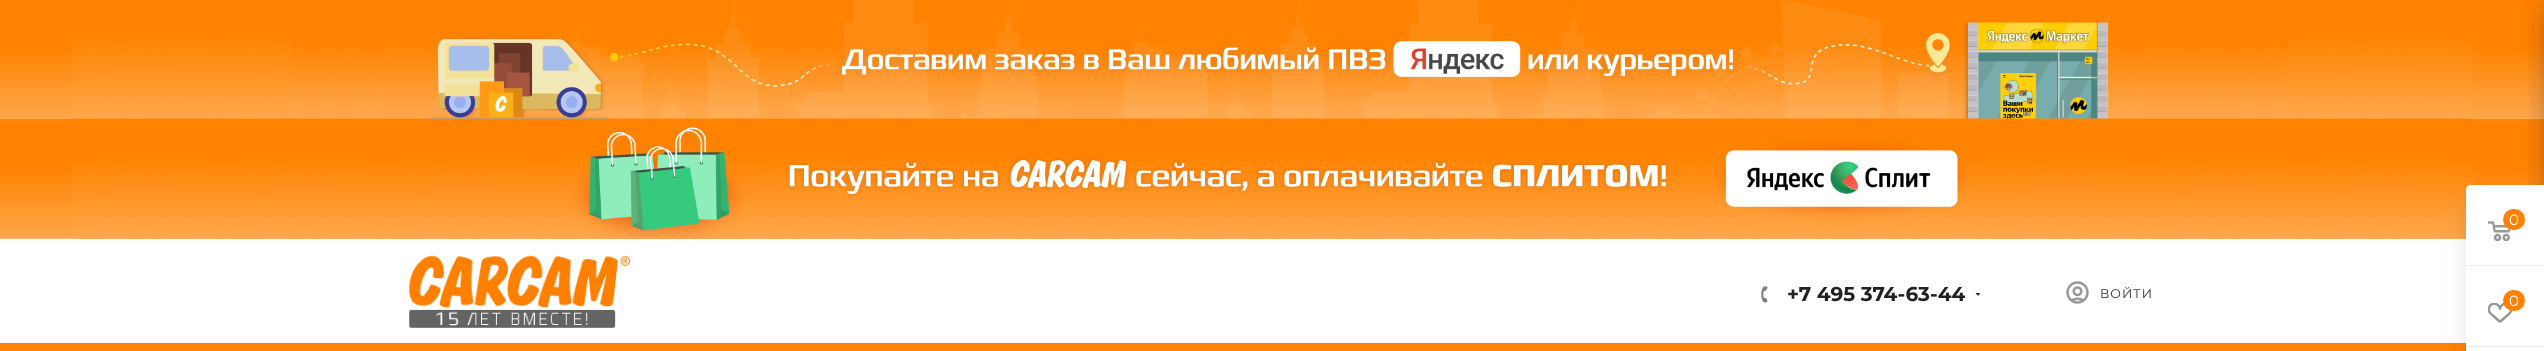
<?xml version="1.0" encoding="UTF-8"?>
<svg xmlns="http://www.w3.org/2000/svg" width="2544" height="351">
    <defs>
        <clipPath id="clip1"><rect x="1975" y="293" width="6" height="4"/></clipPath>
        <filter id="blur1" x="-50%" y="-200%" width="200%" height="500%"><feGaussianBlur stdDeviation="11"/></filter>
        <filter id="blur2" x="-50%" y="-200%" width="200%" height="500%"><feGaussianBlur stdDeviation="12.5"/></filter>
    </defs>
    <rect width="100%" height="100%" fill="#FFFFFF"/>
    <image x="0" y="0" width="2544" height="119" href="img_01.png"/>
    <image x="0" y="118" width="2544" height="121" href="img_02.png"/>
    <image x="393" y="245" width="237" height="95" href="img_03.png"/>
    <image x="1761" y="286" width="7" height="17" href="img_04.png"/>
    <text x="1787" y="301" font-family="Montserrat" font-size="20" font-weight="700" fill="#222222">+7 495 374-63-44</text>
    <g clip-path="url(#clip1)">
        <path d="M 1975 292.5 H 1981 L 1978 296 Z" fill="#333333" fill-rule="evenodd"/>
    </g>
    <image x="2066" y="281" width="23" height="23" href="img_05.png"/>
    <text x="2100" y="298" font-family="Montserrat" font-size="12.5" letter-spacing="1" fill="#333333">ВОЙТИ</text>
    <rect x="0" y="343" width="2466" height="8" fill="#FF8200"/>
    <rect x="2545" y="8" width="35" height="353" rx="2.5" fill="#2C2C2C" fill-opacity="0.4" filter="url(#blur1)"/>
    <rect x="2466" y="198" width="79" height="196" rx="5" fill="#000000" fill-opacity="0.1" filter="url(#blur2)"/>
    <path d="M 2471 185 H 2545 V 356 H 2471 C 2468 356 2466 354 2466 351 V 190 C 2466 187 2468 185 2471 185 Z" fill="#FFFFFF"/>
    <rect x="2466" y="265" width="78" height="1" fill="#ECECEC"/>
    <image x="2488" y="221" width="23" height="20" href="img_06.png"/>
    <rect x="2503" y="209" width="22" height="21" rx="10.5" fill="#FF8200"/>
    <text x="2509" y="225" font-family="Montserrat" font-size="15" fill="#FFFFFF">0</text>
    <rect x="2466" y="346" width="78" height="1" fill="#ECECEC"/>
    <image x="2488" y="303" width="25" height="20" href="img_07.png"/>
    <rect x="2503" y="290" width="22" height="21" rx="10.5" fill="#FF8200"/>
    <text x="2509" y="306" font-family="Montserrat" font-size="15" fill="#FFFFFF">0</text>
</svg>
